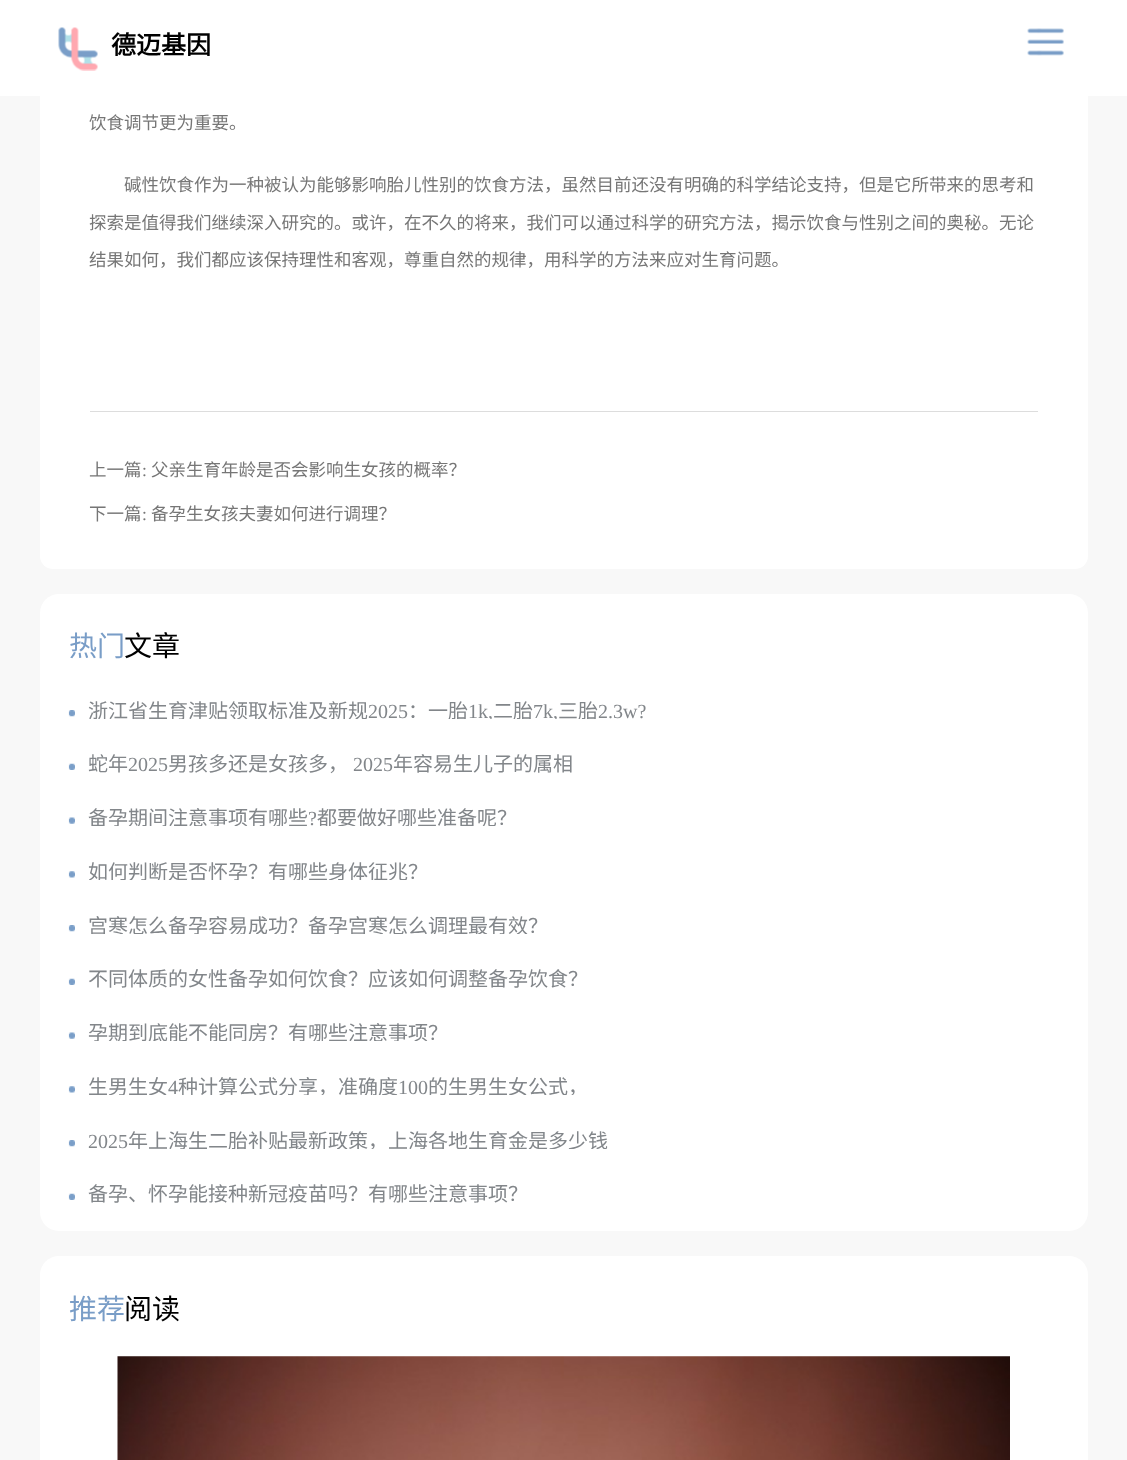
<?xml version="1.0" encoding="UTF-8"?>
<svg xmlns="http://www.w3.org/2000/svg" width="1127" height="1460">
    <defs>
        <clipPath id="clip1"><rect x="69" y="694" width="990" height="25"/></clipPath>
        <clipPath id="clip2"><rect x="69" y="801" width="990" height="25"/></clipPath>
        <clipPath id="clip3"><rect x="69" y="855" width="990" height="25"/></clipPath>
        <clipPath id="clip4"><rect x="69" y="909" width="990" height="25"/></clipPath>
        <clipPath id="clip5"><rect x="69" y="1016" width="990" height="25"/></clipPath>
        <clipPath id="clip6"><rect x="69" y="1070" width="990" height="25"/></clipPath>
        <clipPath id="clip7"><rect x="69" y="1124" width="990" height="25"/></clipPath>
    </defs>
    <rect width="100%" height="100%" fill="#F8F8F8"/>
    <rect x="40" y="-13" width="1048" height="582" rx="13" fill="#FFFFFF"/>
    <rect x="0" y="0" width="1127" height="96" fill="#FFFFFF"/>
    <image x="58" y="27" width="40" height="44" href="img_01.png"/>
    <text x="111" y="54" font-family="Noto Sans CJK SC" font-size="25" font-weight="700" fill="#000000">德迈基因</text>
    <image x="1027" y="28" width="37" height="28" href="img_02.png"/>
    <text x="89" y="129" font-family="Noto Sans CJK SC" font-size="17.5" fill="#767676">饮食调节更为重要。</text>
    <text x="124" y="191" font-family="Noto Sans CJK SC" font-size="17.5" fill="#767676">碱性饮食作为一种被认为能够影响胎儿性别的饮食方法，虽然目前还没有明确的科学结论支持，但是它所带来的思考和</text>
    <text x="89" y="229" font-family="Noto Sans CJK SC" font-size="17.5" fill="#767676">探索是值得我们继续深入研究的。或许，在不久的将来，我们可以通过科学的研究方法，揭示饮食与性别之间的奥秘。无论</text>
    <text x="89" y="266" font-family="Noto Sans CJK SC" font-size="17.5" fill="#767676">结果如何，我们都应该保持理性和客观，尊重自然的规律，用科学的方法来应对生育问题。</text>
    <rect x="90" y="411" width="948" height="1" fill="#DDDDDD"/>
    <text x="89" y="476" font-family="Noto Sans CJK SC" font-size="17.5" fill="#767676">上一篇</text>
    <text x="142" y="476" font-family="Liberation Serif" font-size="17.5" fill="#767676">:</text>
    <text x="151" y="476" font-family="Noto Sans CJK SC" font-size="17.5" fill="#767676">父亲生育年龄是否会影响生女孩的概率？</text>
    <text x="89" y="520" font-family="Noto Sans CJK SC" font-size="17.5" fill="#767676">下一篇</text>
    <text x="142" y="520" font-family="Liberation Serif" font-size="17.5" fill="#767676">:</text>
    <text x="151" y="520" font-family="Noto Sans CJK SC" font-size="17.5" fill="#767676">备孕生女孩夫妻如何进行调理？</text>
    <rect x="40" y="594" width="1048" height="637" rx="19" fill="#FFFFFF"/>
    <text x="69" y="656" font-family="Noto Sans CJK SC" font-size="28" fill="#799DC7">热门</text>
    <text x="124" y="656" font-family="Noto Sans CJK SC" font-size="28" fill="#000000">文章</text>
    <image x="68" y="710" width="7" height="7" href="img_03.png"/>
    <g clip-path="url(#clip1)">
        <text x="88" y="718" font-family="Noto Sans CJK SC" font-size="20" fill="#82868A">浙江省生育津贴领取标准及新规</text>
    </g>
    <text x="368" y="718" font-family="Liberation Serif" font-size="20" fill="#82868A">2025</text>
    <g clip-path="url(#clip1)">
        <text x="408" y="718" font-family="Noto Sans CJK SC" font-size="20" fill="#82868A">：一胎</text>
        <text x="468" y="718" font-family="Liberation Serif" font-size="20" fill="#82868A">1k,</text>
        <text x="493" y="718" font-family="Noto Sans CJK SC" font-size="20" fill="#82868A">二胎</text>
        <text x="533" y="718" font-family="Liberation Serif" font-size="20" fill="#82868A">7k,</text>
        <text x="558" y="718" font-family="Noto Sans CJK SC" font-size="20" fill="#82868A">三胎</text>
    </g>
    <text x="598" y="718" font-family="Liberation Serif" font-size="20" fill="#82868A">2.3w?</text>
    <image x="68" y="763" width="7" height="7" href="img_04.png"/>
    <text x="88" y="771" font-family="Noto Sans CJK SC" font-size="20" fill="#82868A">蛇年</text>
    <text x="128" y="771" font-family="Liberation Serif" font-size="20" fill="#82868A">2025</text>
    <text x="168" y="771" font-family="Noto Sans CJK SC" font-size="20" fill="#82868A">男孩多还是女孩多，</text>
    <text x="353" y="771" font-family="Liberation Serif" font-size="20" fill="#82868A">2025</text>
    <text x="393" y="771" font-family="Noto Sans CJK SC" font-size="20" fill="#82868A">年容易生儿子的属相</text>
    <image x="68" y="817" width="7" height="7" href="img_05.png"/>
    <g clip-path="url(#clip2)">
        <text x="88" y="825" font-family="Noto Sans CJK SC" font-size="20" fill="#82868A">备孕期间注意事项有哪些</text>
    </g>
    <text x="308" y="825" font-family="Liberation Serif" font-size="20" fill="#82868A">?</text>
    <g clip-path="url(#clip2)">
        <text x="317" y="825" font-family="Noto Sans CJK SC" font-size="20" fill="#82868A">都要做好哪些准备呢？</text>
    </g>
    <image x="68" y="871" width="7" height="7" href="img_06.png"/>
    <g clip-path="url(#clip3)">
        <text x="88" y="879" font-family="Noto Sans CJK SC" font-size="20" fill="#82868A">如何判断是否怀孕？有哪些身体征兆？</text>
    </g>
    <image x="68" y="925" width="7" height="7" href="img_03.png"/>
    <g clip-path="url(#clip4)">
        <text x="88" y="933" font-family="Noto Sans CJK SC" font-size="20" fill="#82868A">宫寒怎么备孕容易成功？备孕宫寒怎么调理最有效？</text>
    </g>
    <image x="68" y="978" width="7" height="7" href="img_04.png"/>
    <text x="88" y="986" font-family="Noto Sans CJK SC" font-size="20" fill="#82868A">不同体质的女性备孕如何饮食？应该如何调整备孕饮食？</text>
    <image x="68" y="1032" width="7" height="7" href="img_05.png"/>
    <g clip-path="url(#clip5)">
        <text x="88" y="1040" font-family="Noto Sans CJK SC" font-size="20" fill="#82868A">孕期到底能不能同房？有哪些注意事项？</text>
    </g>
    <image x="68" y="1086" width="7" height="7" href="img_06.png"/>
    <g clip-path="url(#clip6)">
        <text x="88" y="1094" font-family="Noto Sans CJK SC" font-size="20" fill="#82868A">生男生女</text>
    </g>
    <text x="168" y="1094" font-family="Liberation Serif" font-size="20" fill="#82868A">4</text>
    <g clip-path="url(#clip6)">
        <text x="178" y="1094" font-family="Noto Sans CJK SC" font-size="20" fill="#82868A">种计算公式分享，准确度</text>
    </g>
    <text x="398" y="1094" font-family="Liberation Serif" font-size="20" fill="#82868A">100</text>
    <g clip-path="url(#clip6)">
        <text x="428" y="1094" font-family="Noto Sans CJK SC" font-size="20" fill="#82868A">的生男生女公式，</text>
    </g>
    <image x="68" y="1140" width="7" height="7" href="img_03.png"/>
    <text x="88" y="1148" font-family="Liberation Serif" font-size="20" fill="#82868A">2025</text>
    <g clip-path="url(#clip7)">
        <text x="128" y="1148" font-family="Noto Sans CJK SC" font-size="20" fill="#82868A">年上海生二胎补贴最新政策，上海各地生育金是多少钱</text>
    </g>
    <image x="68" y="1193" width="7" height="7" href="img_04.png"/>
    <text x="88" y="1201" font-family="Noto Sans CJK SC" font-size="20" fill="#82868A">备孕、怀孕能接种新冠疫苗吗？有哪些注意事项？</text>
    <rect x="40" y="1256" width="1048" height="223" rx="19" fill="#FFFFFF"/>
    <text x="69" y="1319" font-family="Noto Sans CJK SC" font-size="28" fill="#799DC7">推荐</text>
    <text x="124" y="1319" font-family="Noto Sans CJK SC" font-size="28" fill="#000000">阅读</text>
    <image x="117" y="1356" width="893" height="104" href="img_07.png"/>
</svg>
